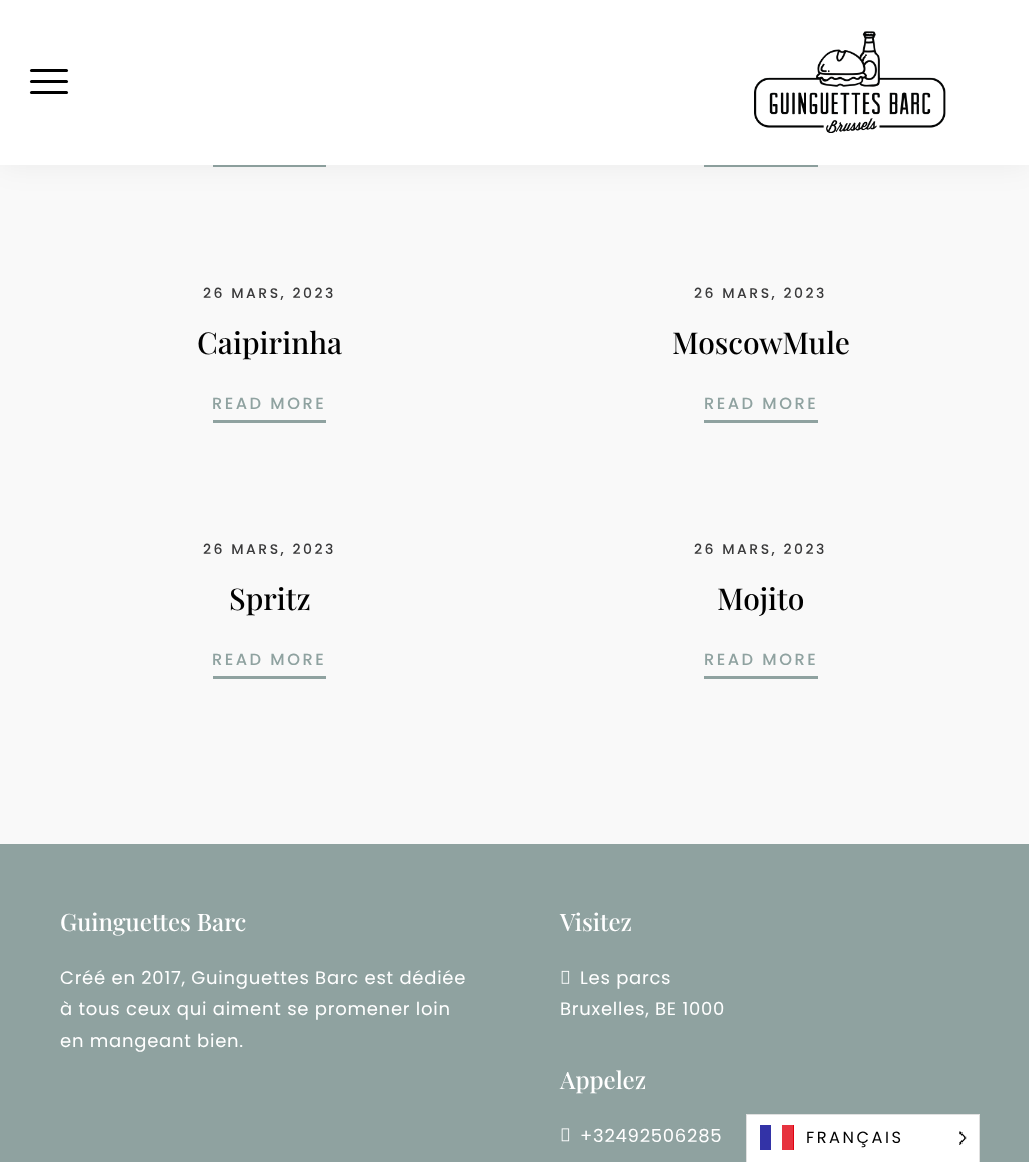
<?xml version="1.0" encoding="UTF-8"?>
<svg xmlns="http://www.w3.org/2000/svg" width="1029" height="1162">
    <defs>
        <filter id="blur1" x="-50%" y="-200%" width="200%" height="500%"><feGaussianBlur stdDeviation="15"/></filter>
    </defs>
    <rect width="100%" height="100%" fill="#F9F9F9"/>
    <rect x="213" y="165" width="113" height="2" fill="#8FA2A0"/>
    <rect x="704" y="165" width="114" height="2" fill="#8FA2A0"/>
    <rect x="0" y="0" width="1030" height="165" fill="#0A0A14" fill-opacity="0.06" filter="url(#blur1)"/>
    <rect x="0" y="0" width="1029" height="165" fill="#FFFFFF"/>
    <rect x="30" y="80" width="38" height="3" rx="1.5" fill="#000000"/>
    <rect x="30" y="69" width="38" height="3" rx="1.5" fill="#000000"/>
    <rect x="30" y="91" width="38" height="3" rx="1.5" fill="#000000"/>
    <image x="754" y="31" width="192" height="102" href="img_01.png"/>
    <text x="203" y="298" font-family="Poppins" font-size="14" font-weight="500" letter-spacing="2.5" fill="#3A3A3B">26 MARS, 2023</text>
    <text x="197" y="354" font-family="Playfair Display" font-size="30" font-weight="500" fill="#000000">Caipirinha</text>
    <rect x="213" y="420" width="113" height="3" fill="#8FA2A0"/>
    <text x="212" y="409" font-family="Poppins" font-size="16.25" font-weight="500" letter-spacing="2.5" fill="#8FA2A0">READ MORE</text>
    <text x="694" y="298" font-family="Poppins" font-size="14" font-weight="500" letter-spacing="2.5" fill="#3A3A3B">26 MARS, 2023</text>
    <text x="672" y="354" font-family="Playfair Display" font-size="30" font-weight="500" fill="#000000">MoscowMule</text>
    <rect x="704" y="420" width="114" height="3" fill="#8FA2A0"/>
    <text x="704" y="409" font-family="Poppins" font-size="16.25" font-weight="500" letter-spacing="2.5" fill="#8FA2A0">READ MORE</text>
    <text x="203" y="554" font-family="Poppins" font-size="14" font-weight="500" letter-spacing="2.5" fill="#3A3A3B">26 MARS, 2023</text>
    <text x="229" y="610" font-family="Playfair Display" font-size="30" font-weight="500" fill="#000000">Spritz</text>
    <rect x="213" y="676" width="113" height="3" fill="#8FA2A0"/>
    <text x="212" y="665" font-family="Poppins" font-size="16.25" font-weight="500" letter-spacing="2.5" fill="#8FA2A0">READ MORE</text>
    <text x="694" y="554" font-family="Poppins" font-size="14" font-weight="500" letter-spacing="2.5" fill="#3A3A3B">26 MARS, 2023</text>
    <text x="717" y="610" font-family="Playfair Display" font-size="30" font-weight="500" fill="#000000">Mojito</text>
    <rect x="704" y="676" width="114" height="3" fill="#8FA2A0"/>
    <text x="704" y="665" font-family="Poppins" font-size="16.25" font-weight="500" letter-spacing="2.5" fill="#8FA2A0">READ MORE</text>
    <rect x="0" y="844" width="1029" height="318" fill="#8FA2A0"/>
    <text x="60" y="931" font-family="Playfair Display" font-size="24" font-weight="500" fill="#FFFFFF">Guinguettes Barc</text>
    <text font-family="Poppins" font-size="18" letter-spacing="0.75" fill="#FFFFFF">
        <tspan x="60" y="984">Créé en 2017, Guinguettes Barc est dédiée</tspan>
        <tspan x="60" y="1015">à tous ceux qui aiment se promener loin</tspan>
        <tspan x="60" y="1047">en mangeant bien.</tspan>
    </text>
    <text x="560" y="931" font-family="Playfair Display" font-size="24" font-weight="500" fill="#FFFFFF">Visitez</text>
    <image x="561" y="970" width="9" height="14" href="img_02.png"/>
    <text x="580" y="984" font-family="Poppins" font-size="18" letter-spacing="0.75" fill="#FFFFFF">Les parcs</text>
    <text x="560" y="1015" font-family="Poppins" font-size="18" letter-spacing="0.75" fill="#FFFFFF">Bruxelles, BE 1000</text>
    <text x="560" y="1089" font-family="Playfair Display" font-size="24" font-weight="500" fill="#FFFFFF">Appelez</text>
    <image x="561" y="1128" width="9" height="14" href="img_03.png"/>
    <text x="580" y="1142" font-family="Poppins" font-size="18" letter-spacing="0.75" fill="#FFFFFF">+32492506285</text>
    <rect x="746.5" y="1114.5" width="233" height="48" fill="#FFFFFF" stroke="#E0E0E0"/>
    <rect x="760" y="1125" width="11" height="25" fill="#3333A7"/>
    <rect x="793" y="1125" width="1" height="25" fill="#E1000F"/>
    <rect x="782" y="1125" width="11" height="25" fill="#E7333F"/>
    <text x="806" y="1143" font-family="Poppins" font-size="16.25" letter-spacing="2.5" fill="#000000">FRANÇAIS</text>
    <image x="959" y="1131" width="8" height="14" href="img_04.png"/>
</svg>
